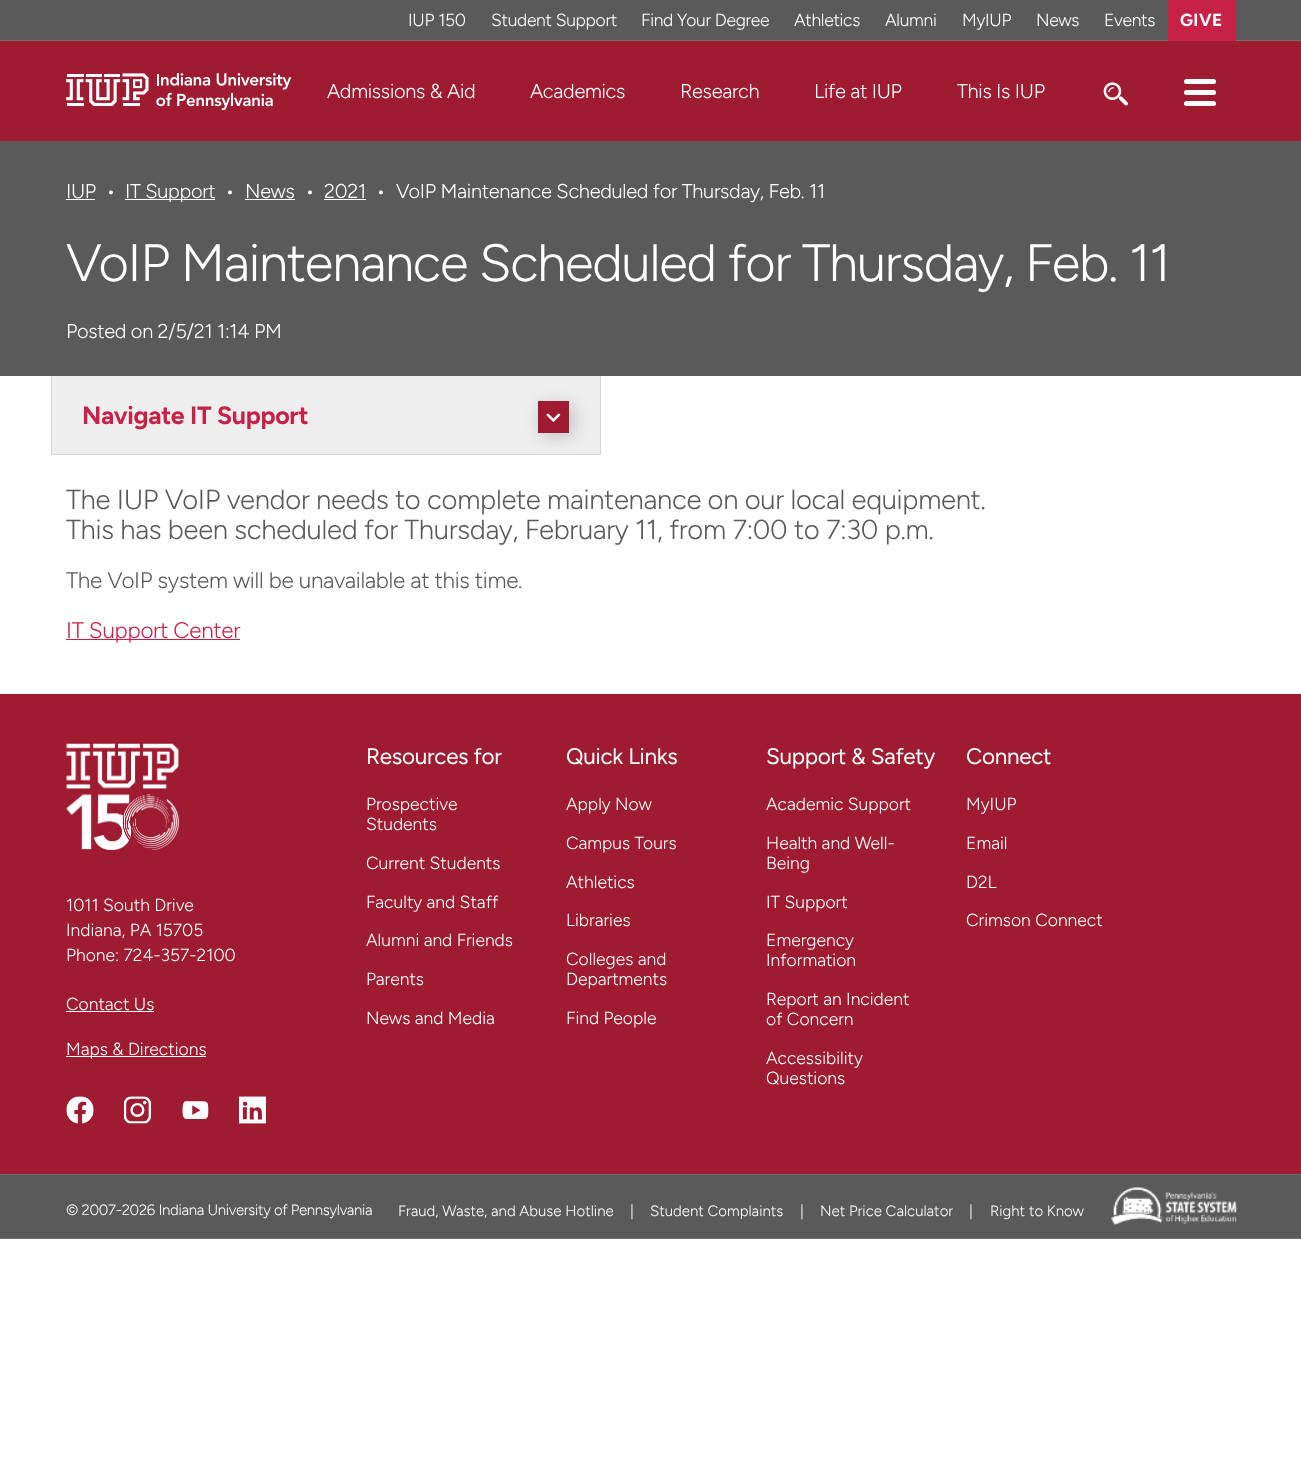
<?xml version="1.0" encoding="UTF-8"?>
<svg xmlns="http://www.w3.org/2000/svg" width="1301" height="1459">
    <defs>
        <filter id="blur1" x="-50%" y="-200%" width="200%" height="500%"><feGaussianBlur stdDeviation="8"/></filter>
    </defs>
    <rect width="100%" height="100%" fill="#FFFFFF"/>
    <rect x="0" y="0" width="1301" height="40" fill="#5A5A5A"/>
    <rect x="0" y="40" width="1301" height="1" fill="#707070"/>
    <text x="408" y="26" font-family="Figtree" font-size="17.5" font-weight="300" letter-spacing="-0.3" fill="#FFFFFF">IUP 150</text>
    <text x="491" y="26" font-family="Figtree" font-size="17.5" font-weight="300" letter-spacing="-0.3" fill="#FFFFFF">Student Support</text>
    <text x="641" y="26" font-family="Figtree" font-size="17.5" font-weight="300" letter-spacing="-0.3" fill="#FFFFFF">Find Your Degree</text>
    <text x="794" y="26" font-family="Figtree" font-size="17.5" font-weight="300" letter-spacing="-0.3" fill="#FFFFFF">Athletics</text>
    <text x="885" y="26" font-family="Figtree" font-size="17.5" font-weight="300" letter-spacing="-0.3" fill="#FFFFFF">Alumni</text>
    <text x="962" y="26" font-family="Figtree" font-size="17.5" font-weight="300" letter-spacing="-0.3" fill="#FFFFFF">MyIUP</text>
    <text x="1036" y="26" font-family="Figtree" font-size="17.5" font-weight="300" letter-spacing="-0.3" fill="#FFFFFF">News</text>
    <text x="1104" y="26" font-family="Figtree" font-size="17.5" font-weight="300" letter-spacing="-0.3" fill="#FFFFFF">Events</text>
    <rect x="1168" y="0" width="68" height="41" fill="#C82147"/>
    <text x="1180" y="26" font-family="Figtree" font-size="17.5" font-weight="700" letter-spacing="0.5" fill="#FFFFFF">GIVE</text>
    <rect x="0" y="41" width="1301" height="100" fill="#9E1B32"/>
    <image x="66" y="73" width="225" height="37" href="img_01.png"/>
    <text x="327" y="98" font-family="Figtree" font-size="20" font-weight="300" letter-spacing="-0.3" fill="#FFFFFF">Admissions &amp; Aid</text>
    <text x="530" y="98" font-family="Figtree" font-size="20" font-weight="300" letter-spacing="-0.3" fill="#FFFFFF">Academics</text>
    <text x="680" y="98" font-family="Figtree" font-size="20" font-weight="300" letter-spacing="-0.3" fill="#FFFFFF">Research</text>
    <text x="814" y="98" font-family="Figtree" font-size="20" font-weight="300" letter-spacing="-0.3" fill="#FFFFFF">Life at IUP</text>
    <text x="957" y="98" font-family="Figtree" font-size="20" font-weight="300" letter-spacing="-0.3" fill="#FFFFFF">This Is IUP</text>
    <image x="1103" y="82" width="25" height="24" href="img_02.png"/>
    <rect x="1184" y="79" width="32" height="5" rx="2.5" fill="#FFFFFF"/>
    <rect x="1184" y="90" width="32" height="5" rx="2.5" fill="#FFFFFF"/>
    <rect x="1184" y="101" width="32" height="5" rx="2.5" fill="#FFFFFF"/>
    <rect x="0" y="141" width="1301" height="235" fill="#5A5A5A"/>
    <text x="66" y="198" font-family="Figtree" font-size="20" font-weight="300" letter-spacing="-0.3" fill="#FFFFFF">IUP</text>
    <rect x="66" y="199" width="29" height="1" fill="#FFFFFF"/>
    <text x="106" y="198" font-family="Figtree" font-size="20" font-weight="300" letter-spacing="-0.3" fill="#FFFFFF">•</text>
    <rect x="125" y="199" width="90" height="1" fill="#FFFFFF"/>
    <text x="125" y="198" font-family="Figtree" font-size="20" font-weight="300" letter-spacing="-0.3" fill="#FFFFFF">IT Support</text>
    <text x="225" y="198" font-family="Figtree" font-size="20" font-weight="300" letter-spacing="-0.3" fill="#FFFFFF">•</text>
    <text x="245" y="198" font-family="Figtree" font-size="20" font-weight="300" letter-spacing="-0.3" fill="#FFFFFF">News</text>
    <rect x="245" y="199" width="50" height="1" fill="#FFFFFF"/>
    <text x="305" y="198" font-family="Figtree" font-size="20" font-weight="300" letter-spacing="-0.3" fill="#FFFFFF">•</text>
    <text x="324" y="198" font-family="Figtree" font-size="20" font-weight="300" letter-spacing="-0.3" fill="#FFFFFF">2021</text>
    <rect x="324" y="199" width="42" height="1" fill="#FFFFFF"/>
    <text x="376" y="198" font-family="Figtree" font-size="20" font-weight="300" letter-spacing="-0.3" fill="#FFFFFF">•</text>
    <text x="396" y="198" font-family="Figtree" font-size="20" font-weight="300" letter-spacing="-0.3" fill="#FFFFFF">VoIP Maintenance Scheduled for Thursday, Feb. 11</text>
    <text x="66" y="281" font-family="Figtree" font-size="52.5" font-weight="300" letter-spacing="-1.25" fill="#FFFFFF">VoIP Maintenance Scheduled for Thursday, Feb. 11</text>
    <text x="66" y="338" font-family="Figtree" font-size="20" font-weight="300" letter-spacing="-0.3" fill="#FFFFFF">Posted on 2/5/21 1:14 PM</text>
    <rect x="51" y="376" width="549" height="78" fill="#EEEEEE"/>
    <path d="M 601 376 V 455 L 600 454 V 376 Z" fill="#D7D7D7"/>
    <path d="M 51 455 V 376 H 52 V 454 Z" fill="#7A7A7A" fill-opacity="0.2"/>
    <text x="82" y="424" font-family="Figtree" font-size="25" font-weight="700" letter-spacing="-0.3" fill="#C82147">Navigate IT Support</text>
    <rect x="541" y="405" width="32" height="31" fill="#000000" fill-opacity="0.2" filter="url(#blur1)"/>
    <rect x="538" y="401" width="31" height="32" fill="#9E1B32"/>
    <image x="546" y="413" width="15" height="9" href="img_03.png"/>
    <rect x="51" y="454" width="550" height="1" fill="#EEEEEE"/>
    <path d="M 601 454 V 455 L 600 454 Z" fill="#D7D7D7"/>
    <path d="M 601 455 H 51 L 52 454 H 600 Z" fill="#7A7A7A" fill-opacity="0.2"/>
    <path d="M 51 455 V 454 H 52.5 Z" fill="#CDCDCD"/>
    <text font-family="Figtree" font-size="27.5" font-weight="300" letter-spacing="-0.3" fill="#5A5A5A">
        <tspan x="66" y="509">The IUP VoIP vendor needs to complete maintenance on our local equipment.</tspan>
        <tspan x="66" y="539">This has been scheduled for Thursday, February 11, from 7:00 to 7:30 p.m.</tspan>
    </text>
    <text x="66" y="588" font-family="Figtree" font-size="22.5" font-weight="300" letter-spacing="-0.3" fill="#5A5A5A">The VoIP system will be unavailable at this time.</text>
    <rect x="66" y="639" width="174" height="1" fill="#C82147"/>
    <text x="66" y="638" font-family="Figtree" font-size="22.5" font-weight="300" letter-spacing="-0.3" fill="#C82147">IT Support Center</text>
    <rect x="0" y="694" width="1301" height="480" fill="#9E1B32"/>
    <text x="366" y="764" font-family="Figtree" font-size="22.5" letter-spacing="-0.3" fill="#FFFFFF">Resources for</text>
    <text font-family="Figtree" font-size="17.5" font-weight="300" fill="#FFFFFF">
        <tspan x="366" y="810">Prospective</tspan>
        <tspan x="366" y="830">Students</tspan>
    </text>
    <text x="366" y="869" font-family="Figtree" font-size="17.5" font-weight="300" fill="#FFFFFF">Current Students</text>
    <text x="366" y="908" font-family="Figtree" font-size="17.5" font-weight="300" fill="#FFFFFF">Faculty and Staff</text>
    <text x="366" y="946" font-family="Figtree" font-size="17.5" font-weight="300" fill="#FFFFFF">Alumni and Friends</text>
    <text x="366" y="985" font-family="Figtree" font-size="17.5" font-weight="300" fill="#FFFFFF">Parents</text>
    <text x="366" y="1024" font-family="Figtree" font-size="17.5" font-weight="300" fill="#FFFFFF">News and Media</text>
    <text x="566" y="764" font-family="Figtree" font-size="22.5" letter-spacing="-0.3" fill="#FFFFFF">Quick Links</text>
    <text x="566" y="810" font-family="Figtree" font-size="17.5" font-weight="300" fill="#FFFFFF">Apply Now</text>
    <text x="566" y="849" font-family="Figtree" font-size="17.5" font-weight="300" fill="#FFFFFF">Campus Tours</text>
    <text x="566" y="888" font-family="Figtree" font-size="17.5" font-weight="300" fill="#FFFFFF">Athletics</text>
    <text x="566" y="926" font-family="Figtree" font-size="17.5" font-weight="300" fill="#FFFFFF">Libraries</text>
    <text font-family="Figtree" font-size="17.5" font-weight="300" fill="#FFFFFF">
        <tspan x="566" y="965">Colleges and</tspan>
        <tspan x="566" y="985">Departments</tspan>
    </text>
    <text x="566" y="1024" font-family="Figtree" font-size="17.5" font-weight="300" fill="#FFFFFF">Find People</text>
    <text x="766" y="764" font-family="Figtree" font-size="22.5" letter-spacing="-0.3" fill="#FFFFFF">Support &amp; Safety</text>
    <text x="766" y="810" font-family="Figtree" font-size="17.5" font-weight="300" fill="#FFFFFF">Academic Support</text>
    <text font-family="Figtree" font-size="17.5" font-weight="300" fill="#FFFFFF">
        <tspan x="766" y="849">Health and Well-</tspan>
        <tspan x="766" y="869">Being</tspan>
    </text>
    <text x="766" y="908" font-family="Figtree" font-size="17.5" font-weight="300" fill="#FFFFFF">IT Support</text>
    <text font-family="Figtree" font-size="17.5" font-weight="300" fill="#FFFFFF">
        <tspan x="766" y="946">Emergency</tspan>
        <tspan x="766" y="966">Information</tspan>
    </text>
    <text font-family="Figtree" font-size="17.5" font-weight="300" fill="#FFFFFF">
        <tspan x="766" y="1005">Report an Incident</tspan>
        <tspan x="766" y="1025">of Concern</tspan>
    </text>
    <text font-family="Figtree" font-size="17.5" font-weight="300" fill="#FFFFFF">
        <tspan x="766" y="1064">Accessibility</tspan>
        <tspan x="766" y="1084">Questions</tspan>
    </text>
    <text x="966" y="764" font-family="Figtree" font-size="22.5" letter-spacing="-0.3" fill="#FFFFFF">Connect</text>
    <text x="966" y="810" font-family="Figtree" font-size="17.5" font-weight="300" fill="#FFFFFF">MyIUP</text>
    <text x="966" y="849" font-family="Figtree" font-size="17.5" font-weight="300" fill="#FFFFFF">Email</text>
    <text x="966" y="888" font-family="Figtree" font-size="17.5" font-weight="300" fill="#FFFFFF">D2L</text>
    <text x="966" y="926" font-family="Figtree" font-size="17.5" font-weight="300" fill="#FFFFFF">Crimson Connect</text>
    <image x="66" y="743" width="113" height="107" href="img_04.png"/>
    <text font-family="Figtree" font-size="17.5" font-weight="300" fill="#FFFFFF">
        <tspan x="66" y="911">1011 South Drive</tspan>
        <tspan x="66" y="936">Indiana, PA 15705</tspan>
        <tspan x="66" y="961">Phone: 724-357-2100</tspan>
    </text>
    <text x="66" y="1010" font-family="Figtree" font-size="17.5" font-weight="300" fill="#FFFFFF">Contact Us</text>
    <rect x="66" y="1011" width="88" height="1" fill="#FFFFFF"/>
    <rect x="66" y="1056" width="140" height="1" fill="#FFFFFF"/>
    <text x="66" y="1055" font-family="Figtree" font-size="17.5" font-weight="300" fill="#FFFFFF">Maps &amp; Directions</text>
    <image x="66" y="1096" width="28" height="28" href="img_05.png"/>
    <image x="124" y="1096" width="27" height="28" href="img_06.png"/>
    <image x="182" y="1101" width="27" height="18" href="img_07.png"/>
    <image x="239" y="1096" width="27" height="28" href="img_08.png"/>
    <rect x="0" y="1175" width="1301" height="63" fill="#5A5A5A"/>
    <rect x="0" y="1174" width="1301" height="1" fill="#707070"/>
    <rect x="0" y="1238" width="1301" height="1" fill="#707070"/>
    <text x="66" y="1215" font-family="Figtree" font-size="15" font-weight="300" letter-spacing="-0.3" fill="#FFFFFF">© 2007-2026 Indiana University of Pennsylvania</text>
    <text x="398" y="1216" font-family="Figtree" font-size="15" font-weight="300" fill="#FFFFFF">Fraud, Waste, and Abuse Hotline</text>
    <text x="630" y="1216" font-family="Figtree" font-size="15" font-weight="300" fill="#FFFFFF">|</text>
    <text x="650" y="1216" font-family="Figtree" font-size="15" font-weight="300" fill="#FFFFFF">Student Complaints</text>
    <text x="800" y="1216" font-family="Figtree" font-size="15" font-weight="300" fill="#FFFFFF">|</text>
    <text x="820" y="1216" font-family="Figtree" font-size="15" font-weight="300" fill="#FFFFFF">Net Price Calculator</text>
    <text x="969" y="1216" font-family="Figtree" font-size="15" font-weight="300" fill="#FFFFFF">|</text>
    <text x="990" y="1216" font-family="Figtree" font-size="15" font-weight="300" fill="#FFFFFF">Right to Know</text>
    <image x="1111" y="1187" width="126" height="38" href="img_09.png"/>
</svg>
